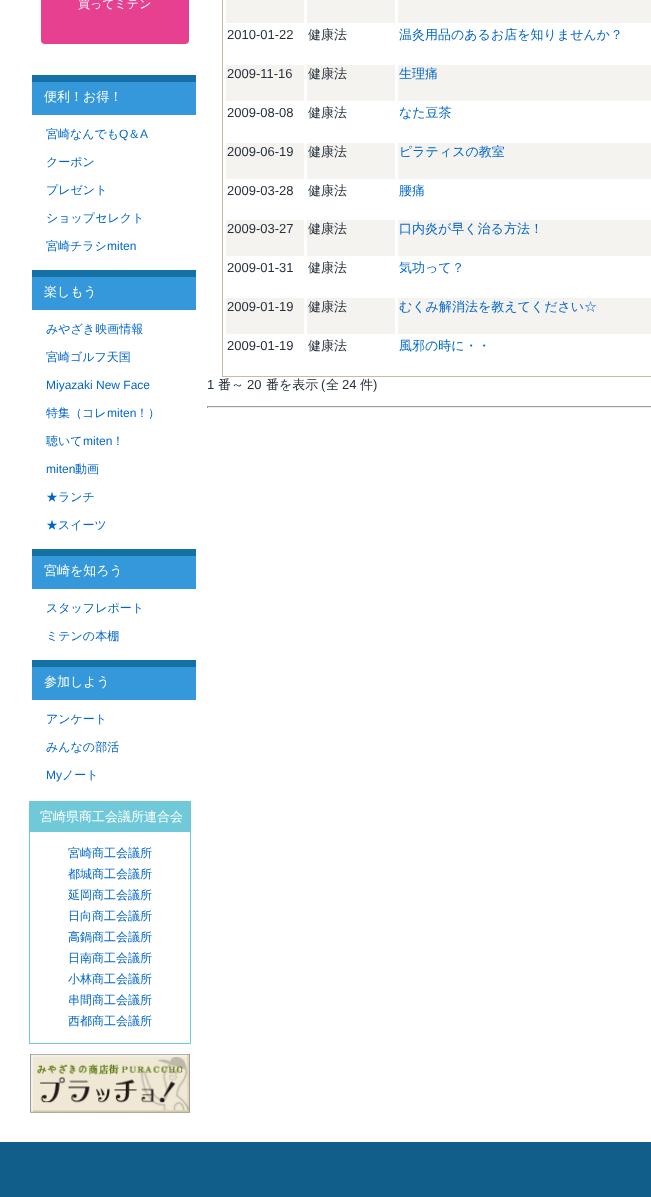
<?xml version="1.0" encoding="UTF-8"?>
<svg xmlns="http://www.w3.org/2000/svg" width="651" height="1197">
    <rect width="100%" height="100%" fill="#FFFFFF"/>
    <rect x="41" y="-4" width="148" height="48" rx="4" fill="#E84091"/>
    <text x="78" y="8" font-family="WenQuanYi Zen Hei" font-size="12" font-weight="500" fill="#FFFFFF">買ってミテン</text>
    <rect x="32" y="82" width="164" height="33" fill="#3498DB"/>
    <rect x="32" y="75" width="164" height="7" fill="#1570A6"/>
    <text x="44" y="101" font-family="WenQuanYi Zen Hei" font-size="13" font-weight="500" fill="#FFFFFF">便利！お得！</text>
    <text x="46" y="138" font-family="WenQuanYi Zen Hei" font-size="12" font-weight="500" fill="#0066CC">宮崎なんでも</text>
    <text x="119" y="138" font-family="Liberation Sans" font-size="12" fill="#0066CC">Q</text>
    <text x="128" y="138" font-family="WenQuanYi Zen Hei" font-size="12" font-weight="500" fill="#0066CC">＆</text>
    <text x="140" y="138" font-family="Liberation Sans" font-size="12" fill="#0066CC">A</text>
    <text x="46" y="166" font-family="WenQuanYi Zen Hei" font-size="12" font-weight="500" fill="#0066CC">クーポン</text>
    <text x="46" y="194" font-family="WenQuanYi Zen Hei" font-size="12" font-weight="500" fill="#0066CC">プレゼント</text>
    <text x="46" y="222" font-family="WenQuanYi Zen Hei" font-size="12" font-weight="500" fill="#0066CC">ショップセレクト</text>
    <text x="46" y="250" font-family="WenQuanYi Zen Hei" font-size="12" font-weight="500" fill="#0066CC">宮崎チラシ</text>
    <text x="107" y="250" font-family="Liberation Sans" font-size="12" fill="#0066CC">miten</text>
    <rect x="32" y="277" width="164" height="33" fill="#3498DB"/>
    <rect x="32" y="270" width="164" height="7" fill="#1570A6"/>
    <text x="44" y="296" font-family="WenQuanYi Zen Hei" font-size="13" font-weight="500" fill="#FFFFFF">楽しもう</text>
    <text x="46" y="333" font-family="WenQuanYi Zen Hei" font-size="12" font-weight="500" fill="#0066CC">みやざき映画情報</text>
    <text x="46" y="361" font-family="WenQuanYi Zen Hei" font-size="12" font-weight="500" fill="#0066CC">宮崎ゴルフ天国</text>
    <text x="46" y="389" font-family="Liberation Sans" font-size="12" fill="#0066CC">Miyazaki New Face</text>
    <text x="46" y="417" font-family="WenQuanYi Zen Hei" font-size="12" font-weight="500" fill="#0066CC">特集（コレ</text>
    <text x="107" y="417" font-family="Liberation Sans" font-size="12" fill="#0066CC">miten</text>
    <text x="136" y="417" font-family="WenQuanYi Zen Hei" font-size="12" font-weight="500" fill="#0066CC">！）</text>
    <text x="46" y="445" font-family="WenQuanYi Zen Hei" font-size="12" font-weight="500" fill="#0066CC">聴いて</text>
    <text x="83" y="445" font-family="Liberation Sans" font-size="12" fill="#0066CC">miten</text>
    <text x="112" y="445" font-family="WenQuanYi Zen Hei" font-size="12" font-weight="500" fill="#0066CC">！</text>
    <text x="46" y="473" font-family="Liberation Sans" font-size="12" fill="#0066CC">miten</text>
    <text x="75" y="473" font-family="WenQuanYi Zen Hei" font-size="12" font-weight="500" fill="#0066CC">動画</text>
    <text x="46" y="501" font-family="WenQuanYi Zen Hei" font-size="12" font-weight="500" fill="#0066CC">★ランチ</text>
    <text x="46" y="529" font-family="WenQuanYi Zen Hei" font-size="12" font-weight="500" fill="#0066CC">★スイーツ</text>
    <rect x="32" y="556" width="164" height="33" fill="#3498DB"/>
    <rect x="32" y="549" width="164" height="7" fill="#1570A6"/>
    <text x="44" y="575" font-family="WenQuanYi Zen Hei" font-size="13" font-weight="500" fill="#FFFFFF">宮崎を知ろう</text>
    <text x="46" y="612" font-family="WenQuanYi Zen Hei" font-size="12" font-weight="500" fill="#0066CC">スタッフレポート</text>
    <text x="46" y="640" font-family="WenQuanYi Zen Hei" font-size="12" font-weight="500" fill="#0066CC">ミテンの本棚</text>
    <rect x="32" y="667" width="164" height="33" fill="#3498DB"/>
    <rect x="32" y="660" width="164" height="7" fill="#1570A6"/>
    <text x="44" y="686" font-family="WenQuanYi Zen Hei" font-size="13" font-weight="500" fill="#FFFFFF">参加しよう</text>
    <text x="46" y="723" font-family="WenQuanYi Zen Hei" font-size="12" font-weight="500" fill="#0066CC">アンケート</text>
    <text x="46" y="751" font-family="WenQuanYi Zen Hei" font-size="12" font-weight="500" fill="#0066CC">みんなの部活</text>
    <text x="46" y="779" font-family="Liberation Sans" font-size="12" fill="#0066CC">My</text>
    <text x="62" y="779" font-family="WenQuanYi Zen Hei" font-size="12" font-weight="500" fill="#0066CC">ノート</text>
    <rect x="29.5" y="801.5" width="161" height="242" fill="none" stroke="#6FC9D8"/>
    <rect x="30" y="802" width="160" height="30" fill="#6FC9D8"/>
    <text x="40" y="821" font-family="WenQuanYi Zen Hei" font-size="13" font-weight="500" fill="#FFFFFF">宮崎県商工会議所連合会</text>
    <text font-family="WenQuanYi Zen Hei" font-size="12" font-weight="500" fill="#0066CC">
        <tspan x="68" y="857">宮崎商工会議所</tspan>
        <tspan x="68" y="878">都城商工会議所</tspan>
        <tspan x="68" y="899">延岡商工会議所</tspan>
        <tspan x="68" y="920">日向商工会議所</tspan>
        <tspan x="68" y="941">高鍋商工会議所</tspan>
        <tspan x="68" y="962">日南商工会議所</tspan>
        <tspan x="68" y="983">小林商工会議所</tspan>
        <tspan x="68" y="1004">串間商工会議所</tspan>
        <tspan x="68" y="1025">西都商工会議所</tspan>
    </text>
    <image x="30" y="1054" width="160" height="59" href="img_01.png"/>
    <rect x="222.5" y="-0.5" width="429" height="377" fill="none" stroke="#C6BBA4"/>
    <rect x="226" y="0" width="78" height="23" fill="#F5F3EF"/>
    <rect x="307" y="0" width="88" height="23" fill="#F5F3EF"/>
    <rect x="398" y="0" width="253" height="23" fill="#F5F3EF"/>
    <text x="227" y="39" font-family="Liberation Sans" font-size="13" fill="#27313D">2010-01-22</text>
    <text x="308" y="39" font-family="WenQuanYi Zen Hei" font-size="13" font-weight="500" fill="#27313D">健康法</text>
    <text x="399" y="39" font-family="WenQuanYi Zen Hei" font-size="13" font-weight="500" fill="#0066CC">温灸用品のあるお店を知りませんか？</text>
    <rect x="226" y="65" width="78" height="36" fill="#F5F3EF"/>
    <text x="227" y="78" font-family="Liberation Sans" font-size="13" fill="#27313D">2009-11-16</text>
    <rect x="307" y="65" width="88" height="36" fill="#F5F3EF"/>
    <text x="308" y="78" font-family="WenQuanYi Zen Hei" font-size="13" font-weight="500" fill="#27313D">健康法</text>
    <rect x="398" y="65" width="253" height="36" fill="#F5F3EF"/>
    <text x="399" y="78" font-family="WenQuanYi Zen Hei" font-size="13" font-weight="500" fill="#0066CC">生理痛</text>
    <text x="227" y="117" font-family="Liberation Sans" font-size="13" fill="#27313D">2009-08-08</text>
    <text x="308" y="117" font-family="WenQuanYi Zen Hei" font-size="13" font-weight="500" fill="#27313D">健康法</text>
    <text x="399" y="117" font-family="WenQuanYi Zen Hei" font-size="13" font-weight="500" fill="#0066CC">なた豆茶</text>
    <rect x="226" y="143" width="78" height="36" fill="#F5F3EF"/>
    <text x="227" y="156" font-family="Liberation Sans" font-size="13" fill="#27313D">2009-06-19</text>
    <rect x="307" y="143" width="88" height="36" fill="#F5F3EF"/>
    <text x="308" y="156" font-family="WenQuanYi Zen Hei" font-size="13" font-weight="500" fill="#27313D">健康法</text>
    <rect x="398" y="143" width="253" height="36" fill="#F5F3EF"/>
    <text x="399" y="156" font-family="WenQuanYi Zen Hei" font-size="13" font-weight="500" fill="#0066CC">ピラティスの教室</text>
    <text x="227" y="195" font-family="Liberation Sans" font-size="13" fill="#27313D">2009-03-28</text>
    <text x="308" y="195" font-family="WenQuanYi Zen Hei" font-size="13" font-weight="500" fill="#27313D">健康法</text>
    <text x="399" y="195" font-family="WenQuanYi Zen Hei" font-size="13" font-weight="500" fill="#0066CC">腰痛</text>
    <rect x="226" y="220" width="78" height="36" fill="#F5F3EF"/>
    <text x="227" y="233" font-family="Liberation Sans" font-size="13" fill="#27313D">2009-03-27</text>
    <rect x="307" y="220" width="88" height="36" fill="#F5F3EF"/>
    <text x="308" y="233" font-family="WenQuanYi Zen Hei" font-size="13" font-weight="500" fill="#27313D">健康法</text>
    <rect x="398" y="220" width="253" height="36" fill="#F5F3EF"/>
    <text x="399" y="233" font-family="WenQuanYi Zen Hei" font-size="13" font-weight="500" fill="#0066CC">口内炎が早く治る方法！</text>
    <text x="227" y="272" font-family="Liberation Sans" font-size="13" fill="#27313D">2009-01-31</text>
    <text x="308" y="272" font-family="WenQuanYi Zen Hei" font-size="13" font-weight="500" fill="#27313D">健康法</text>
    <text x="399" y="272" font-family="WenQuanYi Zen Hei" font-size="13" font-weight="500" fill="#0066CC">気功って？</text>
    <rect x="226" y="298" width="78" height="36" fill="#F5F3EF"/>
    <text x="227" y="311" font-family="Liberation Sans" font-size="13" fill="#27313D">2009-01-19</text>
    <rect x="307" y="298" width="88" height="36" fill="#F5F3EF"/>
    <text x="308" y="311" font-family="WenQuanYi Zen Hei" font-size="13" font-weight="500" fill="#27313D">健康法</text>
    <rect x="398" y="298" width="253" height="36" fill="#F5F3EF"/>
    <text x="399" y="311" font-family="WenQuanYi Zen Hei" font-size="13" font-weight="500" fill="#0066CC">むくみ解消法を教えてください☆</text>
    <text x="227" y="350" font-family="Liberation Sans" font-size="13" fill="#27313D">2009-01-19</text>
    <text x="308" y="350" font-family="WenQuanYi Zen Hei" font-size="13" font-weight="500" fill="#27313D">健康法</text>
    <text x="399" y="350" font-family="WenQuanYi Zen Hei" font-size="13" font-weight="500" fill="#0066CC">風邪の時に・・</text>
    <text x="207" y="389" font-family="Liberation Sans" font-size="13" fill="#27313D">1</text>
    <text x="218" y="389" font-family="WenQuanYi Zen Hei" font-size="13" font-weight="500" fill="#27313D">番～</text>
    <text x="247" y="389" font-family="Liberation Sans" font-size="13" fill="#27313D">20</text>
    <text x="266" y="389" font-family="WenQuanYi Zen Hei" font-size="13" font-weight="500" fill="#27313D">番を表示</text>
    <text x="321" y="389" font-family="Liberation Sans" font-size="13" fill="#27313D">(</text>
    <text x="326" y="389" font-family="WenQuanYi Zen Hei" font-size="13" font-weight="500" fill="#27313D">全</text>
    <text x="342" y="389" font-family="Liberation Sans" font-size="13" fill="#27313D">24</text>
    <text x="360" y="389" font-family="WenQuanYi Zen Hei" font-size="13" font-weight="500" fill="#27313D">件</text>
    <text x="373" y="389" font-family="Liberation Sans" font-size="13" fill="#27313D">)</text>
    <rect x="207" y="406" width="444" height="1" fill="#9F9F9F"/>
    <rect x="207" y="407" width="444" height="1" fill="#EEEEEE"/>
    <rect x="207" y="406" width="1" height="2" fill="#9F9F9F"/>
    <rect x="0" y="1142" width="651" height="55" fill="#125E8B"/>
</svg>
